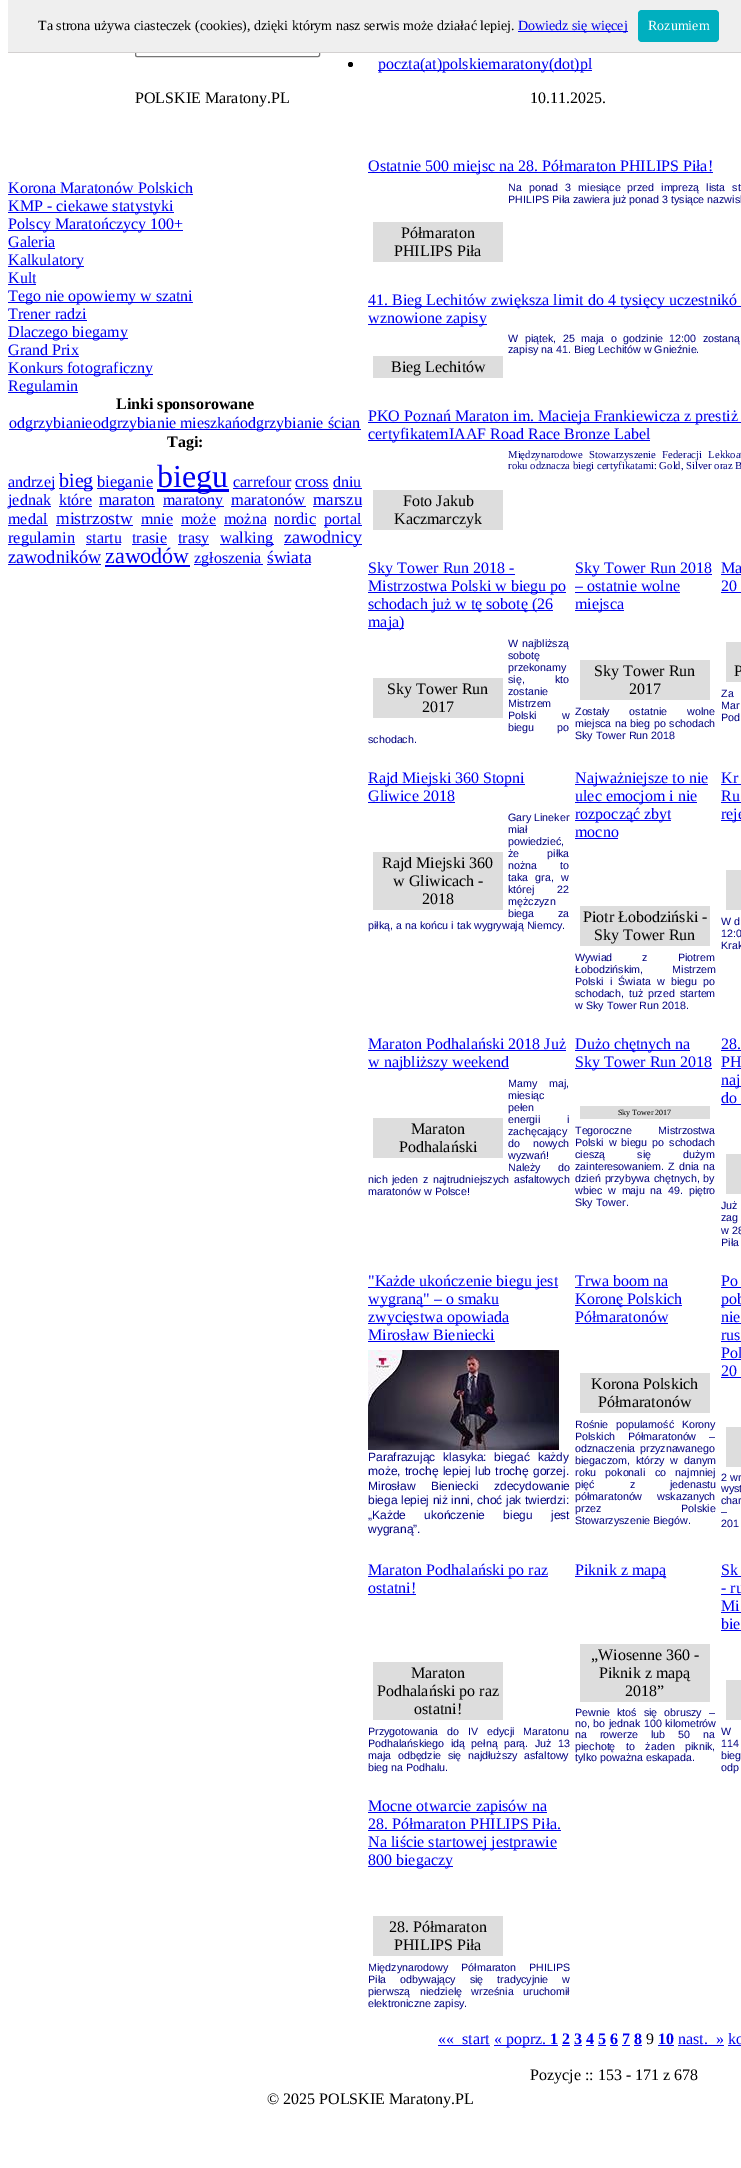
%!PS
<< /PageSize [741 2168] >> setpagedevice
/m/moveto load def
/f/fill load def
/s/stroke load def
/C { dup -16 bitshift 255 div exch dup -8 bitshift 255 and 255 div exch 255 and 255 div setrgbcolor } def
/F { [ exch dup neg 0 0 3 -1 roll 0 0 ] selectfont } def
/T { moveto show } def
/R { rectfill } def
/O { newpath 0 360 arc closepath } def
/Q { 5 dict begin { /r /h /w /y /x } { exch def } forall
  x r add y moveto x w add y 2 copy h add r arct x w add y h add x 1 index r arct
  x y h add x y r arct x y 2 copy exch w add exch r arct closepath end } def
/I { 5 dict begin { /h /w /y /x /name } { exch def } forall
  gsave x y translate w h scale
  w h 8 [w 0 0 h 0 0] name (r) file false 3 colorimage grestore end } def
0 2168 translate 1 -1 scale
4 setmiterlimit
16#FFFFFF C
0 0 741 2168 R
16#767676 C
135.5 36.5 184 20 1.5 Q s
16#EFEFEF C
8 0 733 52 R
16#D3D0D0 C
8 52 733 1 R
/LiberationSerif-Regular 14 F
16#000000 C
(Ta strona używa ciasteczek \(cookies\), dzięki którym nasz serwis może działać lepiej.) 38 30 T
16#0000EE C
518 31 110 1 R
(Dowiedz się więcej) 518 30 T
16#00AFBF C
638 10 81 32 4 Q f
16#FFFFFF C
(Rozumiem) 648 30 T
16#000000 C
350.5 64.5 2.5 O f
16#0000EE C
378 70 214 1 R
/LiberationSerif-Regular 16 F
(poczta\(at\)polskiemaratony\(dot\)pl) 378 69 T
16#000000 C
(POLSKIE Maratony.PL) 135 103 T
(10.11.2025.) 530 103 T
16#0000EE C
(Korona Maratonów Polskich) 8 193 T
8 194 185 1 R
8 212 166 1 R
(KMP - ciekawe statystyki) 8 211 T
8 230 175 1 R
(Polscy Maratończycy 100+) 8 229 T
(Galeria) 8 247 T
8 248 47 1 R
8 266 76 1 R
(Kalkulatory) 8 265 T
(Kult) 8 283 T
8 284 28 1 R
8 302 185 1 R
(Tego nie opowiemy w szatni) 8 301 T
(Trener radzi) 8 319 T
8 320 79 1 R
8 338 120 1 R
(Dlaczego biegamy) 8 337 T
(Grand Prix) 8 355 T
8 356 71 1 R
8 374 145 1 R
(Konkurs fotograficzny) 8 373 T
8 392 70 1 R
(Regulamin) 8 391 T
/LiberationSerif-Bold 16 F
16#000000 C
(Linki sponsorowane) 116 409 T
16#0000EE C
9 429 231 1 R
/LiberationSerif-Regular 16 F
(odgrzybianieodgrzybianie mieszkań) 9 428 T
240 429 121 1 R
(odgrzybianie ścian) 240 428 T
/LiberationSerif-Bold 16 F
16#000000 C
(Tagi:) 167 447 T
16#0000EE C
8 488 47 1 R
/LiberationSerif-Regular 16 F
(andrzej) 8 487 T
59 488 34 1 R
/LiberationSerif-Regular 20 F
(bieg) 59 487 T
97 488 56 1 R
/LiberationSerif-Regular 16.5 F
(bieganie) 97 487 T
157 489 72 3 R
/LiberationSerif-Regular 32 F
(biegu) 157 487 T
/LiberationSerif-Regular 16 F
(carrefour) 233 487 T
233 488 58 1 R
/LiberationSerif-Regular 16.5 F
(cross) 295 487 T
295 488 34 1 R
/LiberationSerif-Regular 16 F
(dniu) 333 487 T
333 488 29 1 R
8 506 43 1 R
(jednak) 8 505 T
(które) 59 505 T
59 506 33 1 R
/LiberationSerif-Regular 17 F
(maraton) 99 505 T
99 506 56 1 R
163 506 61 1 R
/LiberationSerif-Regular 16 F
(maratony) 163 505 T
/LiberationSerif-Regular 16.5 F
(maratonów) 231 505 T
231 506 75 1 R
/LiberationSerif-Regular 17 F
(marszu) 313 505 T
313 506 49 1 R
/LiberationSerif-Regular 16 F
(medal) 8 524 T
8 525 40 1 R
/LiberationSerif-Regular 17.5 F
(mistrzostw) 56 524 T
56 525 77 1 R
/LiberationSerif-Regular 16 F
(mnie) 141 524 T
141 525 32 1 R
(może) 181 524 T
181 525 35 1 R
(można) 224 524 T
224 525 42 1 R
/LiberationSerif-Regular 16.5 F
(nordic) 274 524 T
274 525 42 1 R
324 525 38 1 R
/LiberationSerif-Regular 16 F
(portal) 324 524 T
8 544 67 1 R
/LiberationSerif-Regular 16.5 F
(regulamin) 8 543 T
/LiberationSerif-Regular 16 F
(startu) 86 543 T
86 544 35 1 R
(trasie) 132 543 T
132 544 35 1 R
178 544 31 1 R
(trasy) 178 543 T
220 544 54 1 R
/LiberationSerif-Regular 16.5 F
(walking) 220 543 T
284 544 78 1 R
/LiberationSerif-Regular 18 F
(zawodnicy) 284 543 T
/LiberationSerif-Regular 18.25 F
(zawodników) 8 563 T
8 564 93 1 R
/LiberationSerif-Regular 22 F
(zawodów) 105 563 T
105 565 85 2 R
194 564 69 1 R
/LiberationSerif-Regular 16 F
(zgłoszenia) 194 563 T
/LiberationSerif-Regular 17.5 F
(świata) 267 563 T
267 564 44 1 R
368 172 345 1 R
/LiberationSerif-Regular 16 F
(Ostatnie 500 miejsc na 28. Półmaraton PHILIPS Piła!) 368 171 T
/LiberationSans-Regular 10.7 F
16#000080 C
508 191 m 4 0 32 (Na ponad 3 miesiące przed imprezą lista st) widthshow
(PHILIPS Piła zawiera już ponad 3 tysiące nazwisk) 508 203 T
16#DDDDDD C
373 222 130 40 R
/LiberationSerif-Regular 16 F
16#000000 C
(Półmaraton) 401 238 T
(PHILIPS Piła) 394 256 T
16#0000EE C
368 306 373 1 R
(41. Bieg Lechitów zwiększa limit do 4 tysięcy uczestnikó) 368 305 T
368 324 119 1 R
(wznowione zapisy) 368 323 T
/LiberationSans-Regular 10.7 F
16#000080 C
508 342 m 3.5 0 32 (W piątek, 25 maja o godzinie 12:00 zostaną) widthshow
(zapisy na 41. Bieg Lechitów w Gnieźnie.) 508 353 T
16#DDDDDD C
373 356 130 22 R
/LiberationSerif-Regular 16 F
16#000000 C
(Bieg Lechitów) 391 372 T
16#0000EE C
368 422 373 1 R
(PKO Poznań Maraton im. Macieja Frankiewicza z prestiż) 368 421 T
368 440 282 1 R
(certyfikatemIAAF Road Race Bronze Label) 368 439 T
/LiberationSerif-Regular 10.7 F
16#000080 C
508 458 m 3.5 0 32 (Międzynarodowe Stowarzyszenie Federacji Lekkoat) widthshow
(roku odznacza biegi certyfikatami: Gold, Silver oraz B) 508 469 T
16#DDDDDD C
373 490 130 40 R
/LiberationSerif-Regular 16 F
16#000000 C
(Foto Jakub) 403 506 T
(Kaczmarczyk) 394 524 T
16#0000EE C
368 574 147 1 R
(Sky Tower Run 2018 -) 368 573 T
368 592 198 1 R
(Mistrzostwa Polski w biegu po) 368 591 T
368 610 185 1 R
(schodach już w tę sobotę \(26) 368 609 T
368 628 36 1 R
(maja\)) 368 627 T
/LiberationSans-Regular 10.7 F
16#000080 C
508 647 m 1 0 32 (W najbliższą) widthshow
(sobotę) 508 659 T
(przekonamy) 508 671 T
508 683 m 27 0 32 (się, kto) widthshow
16#DDDDDD C
373 678 130 40 R
/LiberationSerif-Regular 16 F
16#000000 C
(Sky Tower Run) 387 694 T
(2017) 422 712 T
/LiberationSans-Regular 10.7 F
16#000080 C
(zostanie) 508 695 T
(Mistrzem) 508 707 T
508 719 m 22 0 32 (Polski w) widthshow
508 731 m 20 0 32 (biegu po) widthshow
(schodach.) 368 743 T
16#0000EE C
575 574 137 1 R
/LiberationSerif-Regular 16 F
(Sky Tower Run 2018) 575 573 T
(– ostatnie wolne) 575 591 T
575 592 105 1 R
575 610 49 1 R
(miejsca) 575 609 T
16#DDDDDD C
580 660 130 40 R
16#000000 C
(Sky Tower Run) 594 676 T
(2017) 629 694 T
/LiberationSans-Regular 10.7 F
16#000080 C
575 715 m 17 0 32 (Zostały ostatnie wolne) widthshow
575 727 m .5 0 32 (miejsca na bieg po schodach) widthshow
(Sky Tower Run 2018) 575 739 T
/LiberationSerif-Regular 16 F
16#0000EE C
(Ma) 721 573 T
721 574 20 1 R
(20) 721 591 T
721 592 20 1 R
16#DDDDDD C
726 642 15 40 R
16#000000 C
(P) 734 676 T
/LiberationSans-Regular 10.7 F
16#000080 C
721 697 m 10 0 32 (Za) widthshow
721 709 m 13 0 32 (Mar) widthshow
(Pod) 721 721 T
16#0000EE C
368 784 157 1 R
/LiberationSerif-Regular 16 F
(Rajd Miejski 360 Stopni) 368 783 T
(Gliwice 2018) 368 801 T
368 802 87 1 R
/LiberationSans-Regular 10.7 F
16#000080 C
(Gary Lineker) 508 821 T
(miał) 508 833 T
(powiedzieć,) 508 845 T
508 857 m 25 0 32 (że piłka) widthshow
16#DDDDDD C
373 852 130 58 R
/LiberationSerif-Regular 16 F
16#000000 C
(Rajd Miejski 360) 382 868 T
(w Gliwicach -) 393 886 T
(2018) 422 904 T
/LiberationSans-Regular 10.7 F
16#000080 C
508 869 m 20 0 32 (nożna to) widthshow
508 881 m 4 0 32 (taka gra, w) widthshow
508 893 m 20 0 32 (której 22) widthshow
(mężczyzn) 508 905 T
508 917 m 21 0 32 (biega za) widthshow
(piłką, a na końcu i tak wygrywają Niemcy.) 368 929 T
16#0000EE C
575 784 133 1 R
/LiberationSerif-Regular 16 F
(Najważniejsze to nie) 575 783 T
575 802 122 1 R
(ulec emocjom i nie) 575 801 T
575 820 96 1 R
(rozpocząć zbyt) 575 819 T
(mocno) 575 837 T
575 838 43 1 R
16#DDDDDD C
580 906 130 40 R
16#000000 C
(Piotr Łobodziński -) 583 922 T
(Sky Tower Run) 594 940 T
/LiberationSans-Regular 10.7 F
16#000080 C
575 961 m 27 0 32 (Wywiad z Piotrem) widthshow
575 973 m 26 0 32 (Łobodzińskim, Mistrzem) widthshow
575 985 m 3.25 0 32 (Polski i Świata w biegu po) widthshow
575 997 m 2 0 32 (schodach, tuż przed startem) widthshow
(w Sky Tower Run 2018.) 575 1009 T
/LiberationSerif-Regular 16 F
16#0000EE C
(Kr) 721 783 T
721 784 20 1 R
(Ru) 721 801 T
721 802 20 1 R
721 820 20 1 R
(reje) 721 819 T
16#DDDDDD C
726 870 15 40 R
/LiberationSans-Regular 10.7 F
16#000080 C
(W d) 721 925 T
(12:0) 721 937 T
(Krak) 721 949 T
/LiberationSerif-Regular 16 F
16#0000EE C
(Maraton Podhalański 2018 Już) 368 1049 T
368 1050 198 1 R
368 1068 141 1 R
(w najbliższy weekend) 368 1067 T
/LiberationSans-Regular 10.7 F
16#000080 C
508 1087 m 9 0 32 (Mamy maj,) widthshow
(miesiąc) 508 1099 T
(pełen) 508 1111 T
508 1123 m 24 0 32 (energii i) widthshow
16#DDDDDD C
373 1118 130 40 R
/LiberationSerif-Regular 16 F
16#000000 C
(Maraton) 411 1134 T
(Podhalański) 399 1152 T
/LiberationSans-Regular 10.7 F
16#000080 C
(zachęcający) 508 1135 T
508 1147 m 10 0 32 (do nowych) widthshow
(wyzwań!) 508 1159 T
508 1171 m 14 0 32 (Należy do) widthshow
368 1183 m 1.5 0 32 (nich jeden z najtrudniejszych asfaltowych) widthshow
(maratonów w Polsce!) 368 1195 T
16#0000EE C
575 1050 115 1 R
/LiberationSerif-Regular 16 F
(Dużo chętnych na) 575 1049 T
575 1068 137 1 R
(Sky Tower Run 2018) 575 1067 T
16#DDDDDD C
580 1106 130 13 R
/LiberationSerif-Regular 8 F
16#000000 C
(Sky Tower 2017) 618 1115 T
/LiberationSans-Regular 10.7 F
16#000080 C
575 1134 m 24 0 32 (Tegoroczne Mistrzostwa) widthshow
575 1146 m 2 0 32 (Polski w biegu po schodach) widthshow
575 1158 m 29 0 32 (cieszą się dużym) widthshow
575 1170 m 1 0 32 (zainteresowaniem. Z dnia na) widthshow
575 1182 m 1 0 32 (dzień przybywa chętnych, by) widthshow
575 1194 m 2.75 0 32 (wbiec w maju na 49. piętro) widthshow
(Sky Tower.) 575 1206 T
/LiberationSerif-Regular 16 F
16#0000EE C
(28.) 721 1049 T
721 1050 20 1 R
(PH) 721 1067 T
721 1068 20 1 R
721 1086 20 1 R
(naj) 721 1085 T
(do) 721 1103 T
721 1104 20 1 R
16#DDDDDD C
726 1154 15 40 R
/LiberationSans-Regular 10.7 F
16#000080 C
(Już) 721 1209 T
(zag) 721 1221 T
(w 28) 721 1234 T
(Piła) 721 1246 T
16#0000EE C
368 1287 190 1 R
/LiberationSerif-Regular 16 F
("Każde ukończenie biegu jest) 368 1286 T
368 1305 131 1 R
(wygraną" – o smaku) 368 1304 T
368 1323 141 1 R
(zwycięstwa opowiada) 368 1322 T
(Mirosław Bieniecki) 368 1340 T
368 1341 127 1 R
(1.rgb) 368 1350 192 100 I
/LiberationSans-Regular 12 F
16#000080 C
368 1461 m 4.5 0 32 (Parafrazując klasyka: biegać każdy) widthshow
368 1475 m 1 0 32 (może, trochę lepiej lub trochę gorzej.) widthshow
368 1490 m 12 0 32 (Mirosław Bieniecki zdecydowanie) widthshow
368 1504 m .25 0 32 (biega lepiej niż inni, choć jak twierdzi:) widthshow
368 1519 m 15 0 32 („Każde ukończenie biegu jest) widthshow
(wygraną”.) 368 1533 T
/LiberationSerif-Regular 16 F
16#0000EE C
(Trwa boom na) 575 1286 T
575 1287 93 1 R
575 1305 107 1 R
(Koronę Polskich) 575 1304 T
(Półmaratonów) 575 1322 T
575 1323 93 1 R
16#DDDDDD C
580 1373 130 40 R
16#000000 C
(Korona Polskich) 591 1389 T
(Półmaratonów) 598 1407 T
/LiberationSans-Regular 10.7 F
16#000080 C
575 1428 m 4.5 0 32 (Rośnie popularność Korony) widthshow
575 1440 m 10 0 32 (Polskich Półmaratonów –) widthshow
575 1452 m 2 0 32 (odznaczenia przyznawanego) widthshow
575 1464 m 3 0 32 (biegaczom, którzy w danym) widthshow
575 1476 m 6.5 0 32 (roku pokonali co najmniej) widthshow
575 1488 m 32 0 32 (pięć z jedenastu) widthshow
575 1500 m 12 0 32 (półmaratonów wskazanych) widthshow
575 1512 m 77 0 32 (przez Polskie) widthshow
(Stowarzyszenie Biegów.) 575 1524 T
/LiberationSerif-Regular 16 F
16#0000EE C
(Po) 721 1286 T
721 1287 20 1 R
721 1305 20 1 R
(pob) 721 1304 T
(nie) 721 1322 T
721 1323 20 1 R
(rus) 721 1340 T
721 1341 20 1 R
(Pol) 721 1358 T
721 1359 20 1 R
(20) 721 1376 T
721 1377 20 1 R
16#DDDDDD C
726 1427 15 40 R
/LiberationSans-Regular 10.7 F
16#000080 C
721 1481 m .5 0 32 (2 wr) widthshow
721 1492 m 37 0 32 (wyst) widthshow
(char) 721 1504 T
721 1515 m 10 0 32 (–) widthshow
(201) 721 1527 T
16#0000EE C
368 1576 180 1 R
/LiberationSerif-Regular 16 F
(Maraton Podhalański po raz) 368 1575 T
(ostatni!) 368 1593 T
368 1594 48 1 R
16#DDDDDD C
373 1662 130 58 R
16#000000 C
(Maraton) 411 1678 T
(Podhalański po raz) 377 1696 T
(ostatni!) 414 1714 T
/LiberationSans-Regular 10.7 F
16#000080 C
368 1735 m 6 0 32 (Przygotowania do IV edycji Maratonu) widthshow
368 1747 m 3.5 0 32 (Podhalańskiego idą pełną parą. Już 13) widthshow
368 1759 m 3.5 0 32 (maja odbędzie się najdłuższy asfaltowy) widthshow
(bieg na Podhalu.) 368 1771 T
16#0000EE C
575 1576 91 1 R
/LiberationSerif-Regular 16 F
(Piknik z mapą) 575 1575 T
16#DDDDDD C
580 1644 130 58 R
16#000000 C
(„Wiosenne 360 -) 591 1660 T
(Piknik z mapą) 599 1678 T
(2018”) 625 1696 T
/LiberationSans-Regular 10.7 F
16#000080 C
575 1716 m 4 0 32 (Pewnie ktoś się obruszy –) widthshow
575 1727 m .5 0 32 (no, bo jednak 100 kilometrów) widthshow
575 1738 m 10 0 32 (na rowerze lub 50 na) widthshow
575 1750 m 7.5 0 32 (piechotę to żaden piknik,) widthshow
(tylko poważna eskapada.) 575 1761 T
/LiberationSerif-Regular 16 F
16#0000EE C
(Sk) 721 1575 T
721 1576 20 1 R
(- ru) 721 1593 T
721 1594 20 1 R
(Mi) 721 1611 T
721 1612 20 1 R
(bie) 721 1629 T
721 1630 20 1 R
16#DDDDDD C
726 1680 15 40 R
/LiberationSans-Regular 10.7 F
16#000080 C
721 1735 m 7 0 32 (W) widthshow
721 1747 m 2 0 32 (114) widthshow
721 1759 m 15 0 32 (bieg) widthshow
(odp) 721 1771 T
16#0000EE C
368 1812 179 1 R
/LiberationSerif-Regular 16 F
(Mocne otwarcie zapisów na) 368 1811 T
(28. Półmaraton PHILIPS Piła.) 368 1829 T
368 1830 193 1 R
368 1848 189 1 R
(Na liście startowej jestprawie) 368 1847 T
368 1866 85 1 R
(800 biegaczy) 368 1865 T
16#DDDDDD C
373 1916 130 40 R
16#000000 C
(28. Półmaraton) 389 1932 T
(PHILIPS Piła) 394 1950 T
/LiberationSans-Regular 10.7 F
16#000080 C
368 1971 m 10 0 32 (Międzynarodowy Półmaraton PHILIPS) widthshow
368 1983 m 11 0 32 (Piła odbywający się tradycyjnie w) widthshow
368 1995 m 6.5 0 32 (pierwszą niedzielę września uruchomił) widthshow
(elektroniczne zapisy.) 368 2007 T
/LiberationSerif-Regular 16 F
16#0000EE C
(««  start) 438 2044 T
438 2045 52 1 R
494 2045 64 1 R
(« poprz.) 494 2044 T
/LiberationSerif-Bold 16 F
(1 2 3 4 5 6 7 8) 550 2044 T
/LiberationSerif-Regular 16 F
16#000000 C
(9) 646 2044 T
/LiberationSerif-Bold 16 F
16#0000EE C
(10) 658 2044 T
658 2045 16 1 R
/LiberationSerif-Regular 16 F
(nast.  » ko) 678 2044 T
678 2045 46 1 R
562 2045 8 1 R
574 2045 8 1 R
586 2045 8 1 R
598 2045 8 1 R
610 2045 8 1 R
622 2045 8 1 R
634 2045 8 1 R
728 2045 13 1 R
16#000000 C
(Pozycje :: 153 - 171 z 678) 530 2080 T
(© 2025 POLSKIE Maratony.PL) 267 2104 T
showpage
